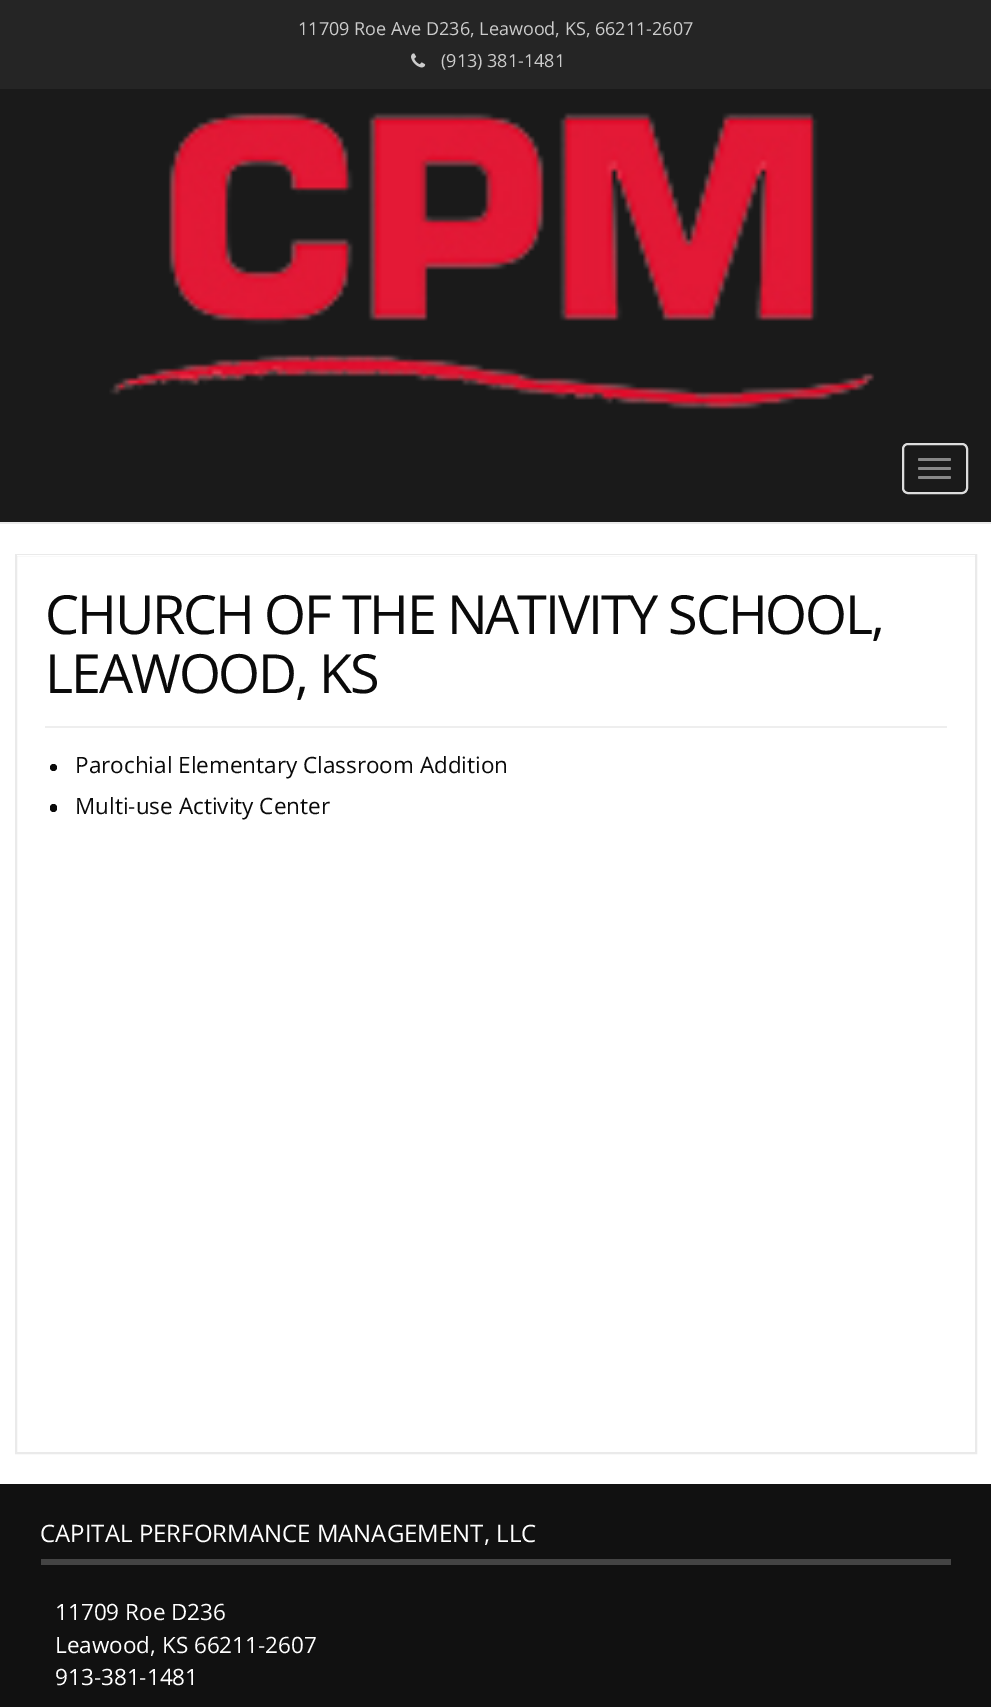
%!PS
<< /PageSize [991 1707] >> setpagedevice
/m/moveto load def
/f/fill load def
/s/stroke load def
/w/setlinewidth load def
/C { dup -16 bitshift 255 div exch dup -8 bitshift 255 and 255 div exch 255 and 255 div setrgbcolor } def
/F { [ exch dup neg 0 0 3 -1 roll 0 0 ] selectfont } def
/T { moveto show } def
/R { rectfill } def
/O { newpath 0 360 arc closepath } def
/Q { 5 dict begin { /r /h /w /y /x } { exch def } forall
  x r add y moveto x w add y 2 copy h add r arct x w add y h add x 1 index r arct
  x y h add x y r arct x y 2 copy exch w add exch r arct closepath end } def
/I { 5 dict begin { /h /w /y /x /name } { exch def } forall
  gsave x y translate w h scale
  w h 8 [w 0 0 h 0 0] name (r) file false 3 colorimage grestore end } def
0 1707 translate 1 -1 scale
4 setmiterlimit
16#FFFFFF C
0 0 991 1707 R
16#252525 C
0 0 991 89 R
/OpenSans-Regular 18 F
16#CCCCCC C
(11709 Roe Ave D236, Leawood, KS, 66211-2607) 298 35 T
(1.rgb) 411 53 15 15 I
(\(913\) 381-1481) 441 67 T
16#1A1A1A C
0 89 991 433 R
16#EAEAEA C
0 522 991 2 R
(2.rgb) 109 112 766 298 I
16#DDDDDD C
2 w
903 444 64 49 5 Q s
16#888888 C
918 458 33 3 1.5 Q f
918 467 33 3 1.5 Q f
918 476 33 3 1.5 Q f
16#EAEAEA C
16 555 960 898 rectstroke
16#FFFFFF C
17 555 958 1 R
/OpenSans-Regular 54 F
16#0A0A0A C
45 634 m -2.15 0 (CHURCH OF THE NATIVITY SCHOOL,) ashow
45 693 m -2.15 0 (LEAWOOD, KS) ashow
16#EEEEEE C
45 726 902 2 R
16#0A0A0A C
53.5 767.5 3.5 O f
/OpenSans-Regular 22.5 F
(Parochial Elementary Classroom Addition) 75 773 T
50 804 7 8 3.5 Q f
(Multi-use Activity Center) 75 814 T
16#111111 C
0 1484 991 223 R
16#444444 C
41 1559 910 6 R
/OpenSans-Regular 24 F
16#FFFFFF C
(CAPITAL PERFORMANCE MANAGEMENT, LLC) 40 1542 T
/OpenSans-Regular 22.5 F
(11709 Roe D236) 55 1620 T
(Leawood, KS 66211-2607) 55 1653 T
(913-381-1481) 55 1685 T
showpage
